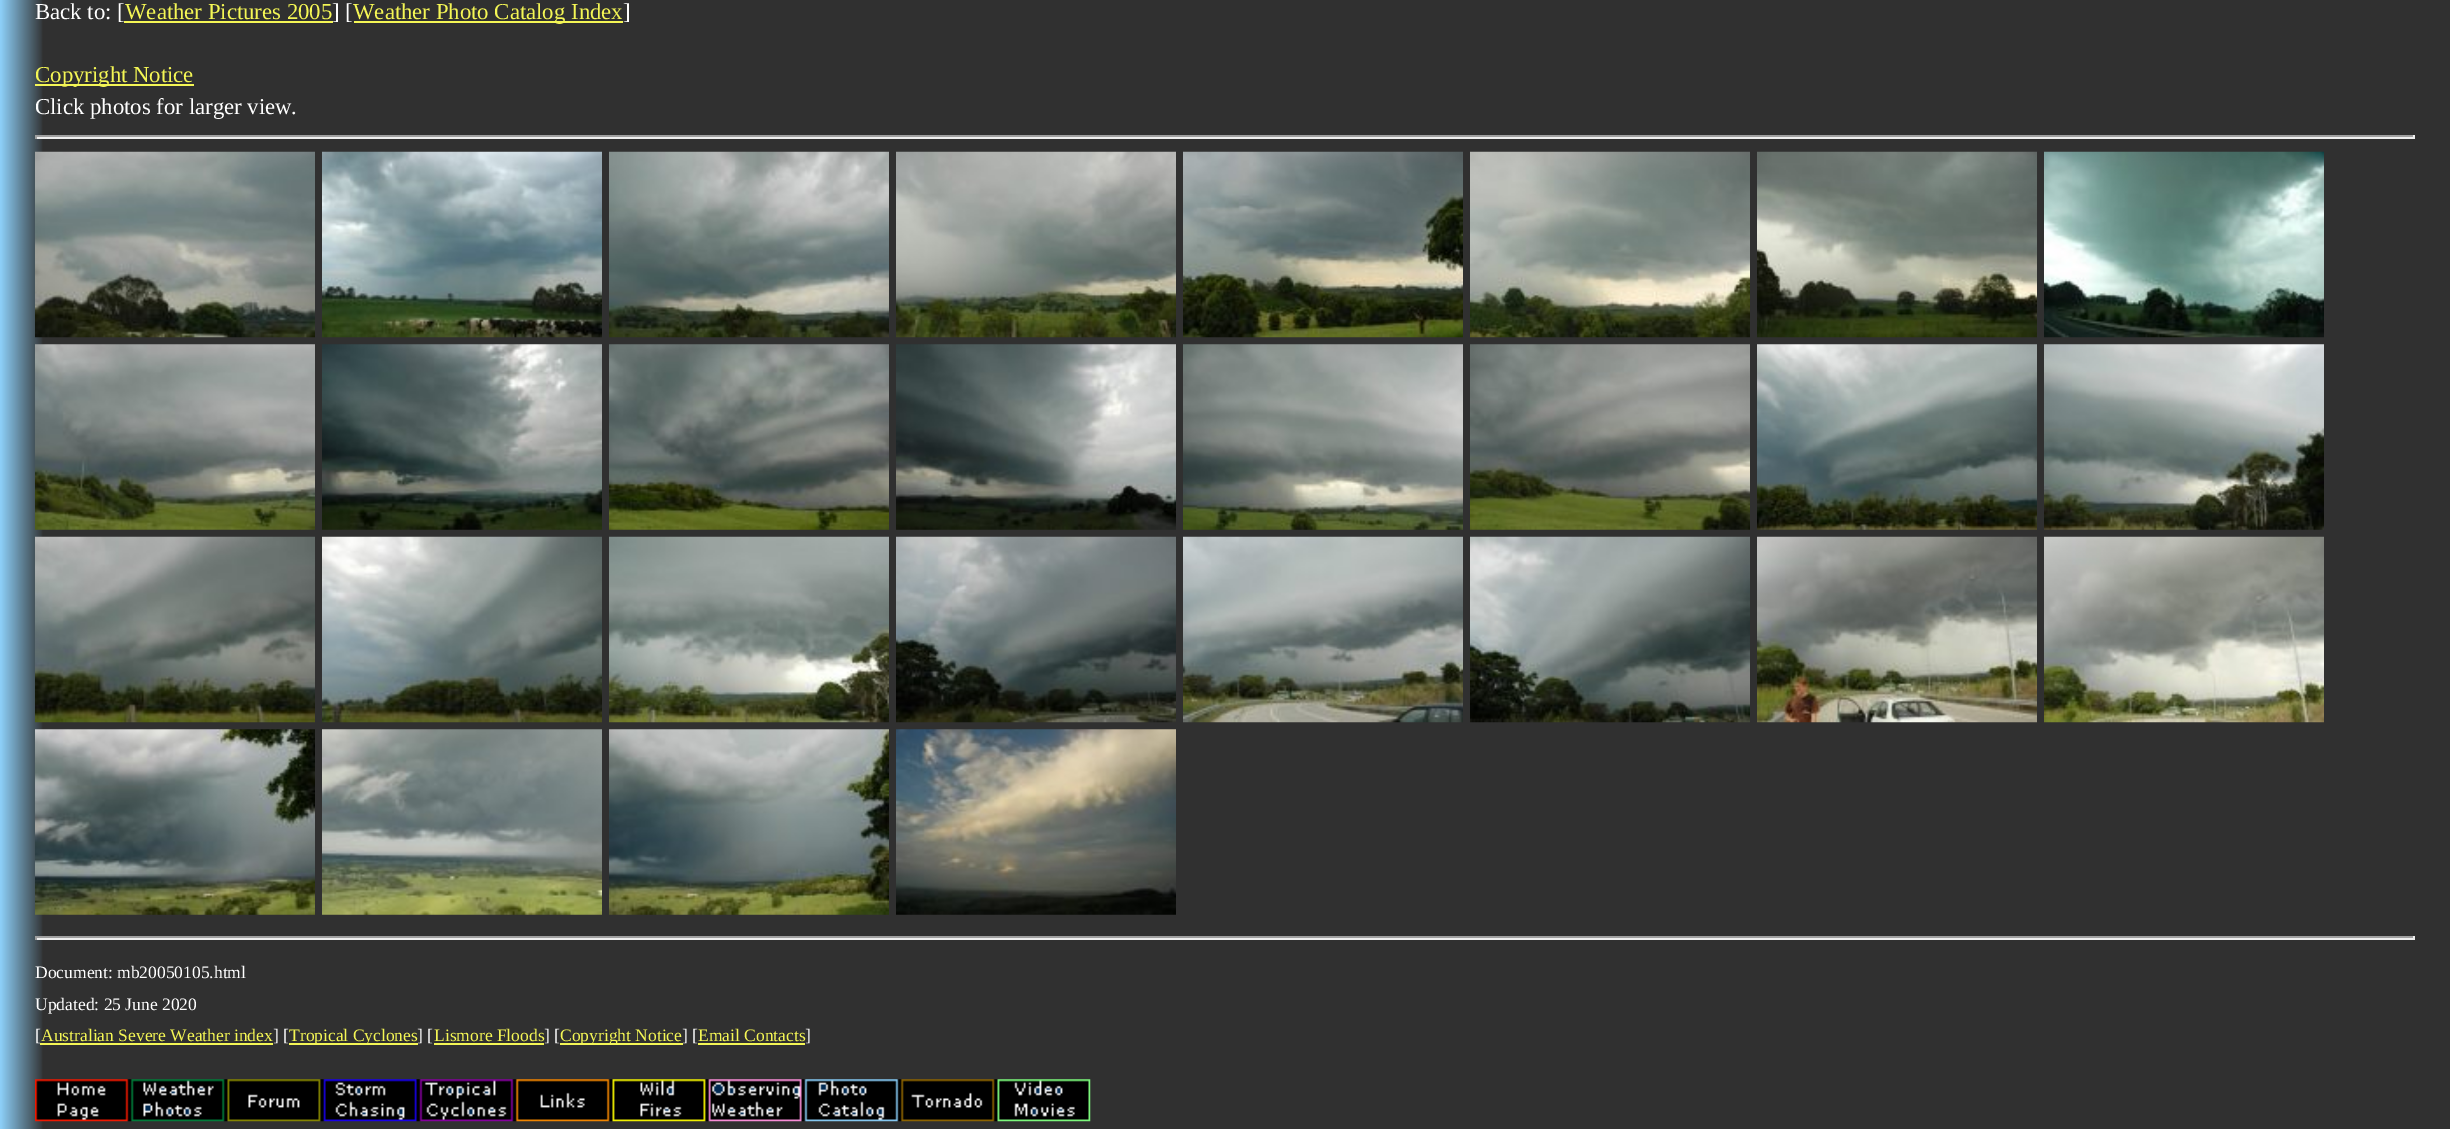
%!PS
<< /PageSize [2450 1129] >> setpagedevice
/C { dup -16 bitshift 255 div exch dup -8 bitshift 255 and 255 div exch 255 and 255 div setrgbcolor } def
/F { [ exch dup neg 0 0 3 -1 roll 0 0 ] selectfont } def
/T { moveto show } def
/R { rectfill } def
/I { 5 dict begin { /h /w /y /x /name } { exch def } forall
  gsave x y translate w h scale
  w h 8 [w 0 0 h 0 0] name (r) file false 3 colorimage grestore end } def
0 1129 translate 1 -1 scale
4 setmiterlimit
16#FFFFFF C
0 0 2450 1129 R
(1.rgb) 0 0 2450 1129 I
/LiberationSerif-Regular 22.75 F
(Back to: [) 35 19 T
16#F4F655 C
124 21 209 2 R
(Weather Pictures 2005) 125 19 T
16#FFFFFF C
(] [) 332 19 T
16#F4F655 C
354 21 269 2 R
(Weather Photo Catalog Index) 353 19 T
16#FFFFFF C
(]) 623 19 T
16#F4F655 C
35 84 159 2 R
(Copyright Notice) 35 82 T
16#FFFFFF C
(Click photos for larger view.) 35 114 T
16#9F9F9F C
35 135 2380 2 R
16#EEEEEE C
2413 135 2 4 R
35 137 2380 2 R
16#9F9F9F C
35 135 2 4 R
(2.rgb) 35 151 280 187 I
(3.rgb) 322 151 280 187 I
(4.rgb) 609 151 280 187 I
(5.rgb) 896 151 280 187 I
(6.rgb) 1183 151 280 187 I
(7.rgb) 1470 151 280 187 I
(8.rgb) 1757 151 280 187 I
(9.rgb) 2044 151 280 187 I
(10.rgb) 35 344 280 186 I
(11.rgb) 322 344 280 186 I
(12.rgb) 609 344 280 186 I
(13.rgb) 896 344 280 186 I
(14.rgb) 1183 344 280 186 I
(15.rgb) 1470 344 280 186 I
(16.rgb) 1757 344 280 186 I
(17.rgb) 2044 344 280 186 I
(18.rgb) 35 536 280 187 I
(19.rgb) 322 536 280 187 I
(20.rgb) 609 536 280 187 I
(21.rgb) 896 536 280 187 I
(22.rgb) 1183 536 280 187 I
(23.rgb) 1470 536 280 187 I
(24.rgb) 1757 536 280 187 I
(25.rgb) 2044 536 280 187 I
(26.rgb) 35 729 280 186 I
(27.rgb) 322 729 280 186 I
(28.rgb) 609 729 280 186 I
(29.rgb) 896 729 280 186 I
35 936 2380 2 R
16#EEEEEE C
2413 936 2 4 R
35 938 2380 2 R
16#9F9F9F C
35 936 2 4 R
/LiberationSerif-Regular 17.5 F
16#FFFFFF C
(Document: mb20050105.html) 35 978 T
(Updated: 25 June 2020) 35 1010 T
([) 35 1041 T
16#F4F655 C
40 1043 233 2 R
(Australian Severe Weather index) 41 1041 T
16#FFFFFF C
(] [) 273 1041 T
16#F4F655 C
289 1043 129 2 R
(Tropical Cyclones) 289 1041 T
16#FFFFFF C
(] [) 417 1041 T
16#F4F655 C
(Lismore Floods) 434 1041 T
16#FFFFFF C
(] [) 544 1041 T
16#F4F655 C
434 1043 110 2 R
560 1043 123 2 R
(Copyright Notice) 560 1041 T
16#FFFFFF C
(] [) 682 1041 T
16#F4F655 C
698 1043 107 2 R
(Email Contacts) 698 1041 T
16#FFFFFF C
(]) 805 1041 T
(30.rgb) 35 1079 1056 43 I
showpage
